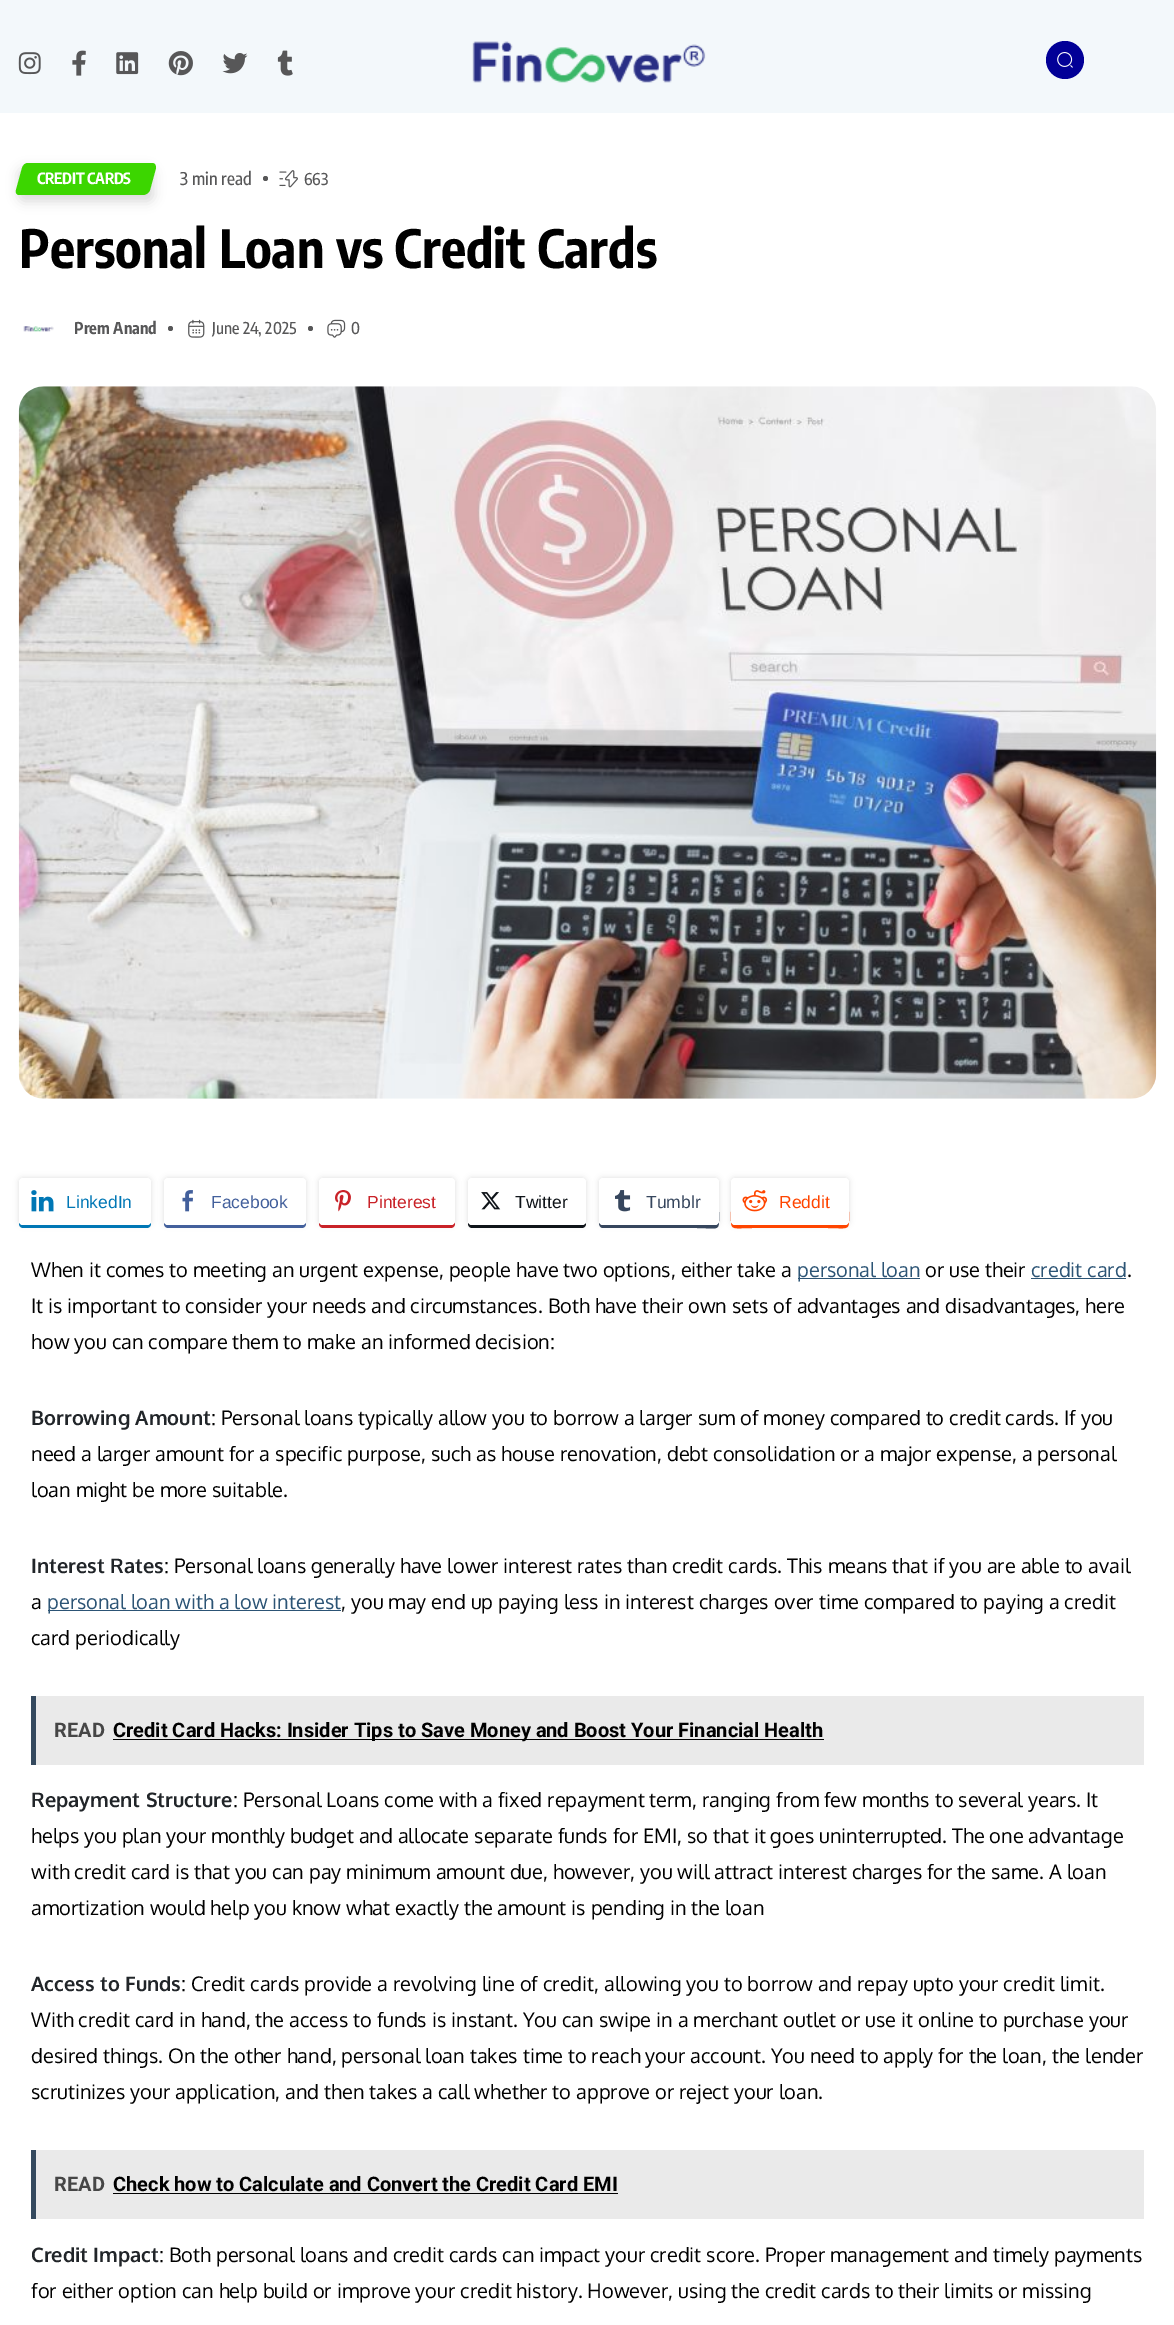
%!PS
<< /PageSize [1174 2325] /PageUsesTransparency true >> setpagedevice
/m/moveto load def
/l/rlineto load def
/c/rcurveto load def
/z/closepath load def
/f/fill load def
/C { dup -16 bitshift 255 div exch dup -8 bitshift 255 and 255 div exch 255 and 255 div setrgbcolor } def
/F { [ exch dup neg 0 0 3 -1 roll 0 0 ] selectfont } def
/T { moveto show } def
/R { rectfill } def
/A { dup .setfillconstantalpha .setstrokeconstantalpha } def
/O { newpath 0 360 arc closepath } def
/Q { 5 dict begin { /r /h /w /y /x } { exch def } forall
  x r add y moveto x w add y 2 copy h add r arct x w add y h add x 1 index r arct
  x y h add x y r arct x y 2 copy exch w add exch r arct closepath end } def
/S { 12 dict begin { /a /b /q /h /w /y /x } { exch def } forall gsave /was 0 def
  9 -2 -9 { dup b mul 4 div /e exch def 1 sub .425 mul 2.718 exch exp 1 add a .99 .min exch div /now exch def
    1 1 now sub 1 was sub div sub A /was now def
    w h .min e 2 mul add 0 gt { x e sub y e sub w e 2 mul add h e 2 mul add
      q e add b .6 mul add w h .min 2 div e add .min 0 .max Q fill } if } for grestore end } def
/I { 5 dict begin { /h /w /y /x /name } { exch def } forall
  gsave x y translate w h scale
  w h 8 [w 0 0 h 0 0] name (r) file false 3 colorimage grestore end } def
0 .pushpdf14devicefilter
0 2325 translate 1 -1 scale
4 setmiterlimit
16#FFFFFF C
0 0 1174 2325 R
16#F3F8FB C
0 0 1174 113 R
(1.rgb) 18 52 23 23 I
(2.rgb) 72 50 14 26 I
(3.rgb) 116 52 23 23 I
(4.rgb) 168 51 25 25 I
(5.rgb) 222 53 26 21 I
(6.rgb) 277 50 16 26 I
(7.rgb) 472 41 234 42 I
16#020097 C
1065 60 19 O f
(8.rgb) 1057 52 16 16 I
16#020202 C
19 169 134 32 5 6 .15 S
16#3CD600 C
28 163 m 124 0 l 3 0 4 2 4 5 c -6 22 l -1 3 -4 5 -7 5 c -124 0 l -2 0 -4 -2 -3 -5 c 6 -22 l 1 -3 3 -5 6 -5 c z f
/EncodeSansCondensed-Bold 15.5 F
16#FFFFFF C
37 184 m -.25 0 (CREDIT CARDS) ashow
/EncodeSansCondensed-Medium 17.5 F
16#575758 C
(3 min read) 180 185 T
265.5 178.5 2.5 O f
(9.rgb) 279 170 19 18 I
/EncodeSansCondensed-Medium 16.25 F
(663) 304 185 T
/EncodeSansCondensed-Bold 52.5 F
16#000000 C
(Personal Loan vs Credit Cards) 19 268 T
(10.rgb) 23 326 31 6 I
/EncodeSansCondensed-Bold 16.25 F
16#575758 C
(Prem Anand) 74 334 T
170.5 328.5 2.5 O f
(11.rgb) 188 319 17 19 I
/EncodeSansCondensed-Medium 16.25 F
(June 24, 2025) 212 334 T
310.5 328.5 2.5 O f
(12.rgb) 327 319 19 19 I
(0) 351 334 T
(13.rgb) 18 386 1139 713 I
16#000000 C
19 1178 132 47 4 3 .13 S
16#0077B5 C
19 1223 m 0 1 l 0 2 2 4 4 4 c 124 0 l 2 0 4 -2 4 -4 c 0 -1 l -1 1 -2 2 -3 2 c -126 0 l -1 0 -2 -1 -3 -2 c z f
16#FFFFFF C
19 1178 132 47 4 Q f
(14.rgb) 31 1190 23 22 I
/LiberationSans-Regular 17.5 F
16#0077B5 C
(LinkedIn) 66 1208 T
16#000000 C
164 1178 142 47 4 3 .13 S
16#43609C C
164 1223 m 0 1 l 0 2 2 4 4 4 c 134 0 l 2 0 4 -2 4 -4 c 0 -1 l -1 1 -2 2 -4 2 c -134 0 l -2 0 -3 -1 -4 -2 c z f
16#FFFFFF C
164 1178 142 47 4 Q f
(15.rgb) 182 1190 11 22 I
16#43609C C
(Facebook) 211 1208 T
16#000000 C
319 1178 136 47 4 3 .13 S
16#C92228 C
319 1223 m 0 1 l 0 2 2 4 4 4 c 128 0 l 2 0 4 -2 4 -4 c 0 -3 l 0 2 -2 4 -4 4 c -129 0 l -1 0 -2 -1 -3 -2 c z f
16#FFFFFF C
319 1178 136 47 4 Q f
(16.rgb) 335 1190 16 22 I
16#C92228 C
(Pinterest) 367 1208 T
16#000000 C
468 1178 118 47 4 3 .13 S
16#0F1419 C
468 1223 m 0 1 l 0 2 2 4 4 4 c 110 0 l 2 0 4 -2 4 -4 c 0 -1 l -1 1 l -2 1 l -112 0 l -1 0 -2 -1 -3 -2 c z f
16#FFFFFF C
468 1178 118 47 4 Q f
(17.rgb) 481 1192 20 18 I
16#0F1419 C
(Twitter) 515 1208 T
16#000000 C
599 1178 120 47 4 3 .13 S
16#36465D C
599 1223 m 0 2 1 5 4 5 c 93 0 l 25 0 23 5 23 -17 c 0 -28 l 0 38 l 0 2 -2 4 -4 4 c -113 0 l -1 0 -2 -1 -3 -2 c z f
16#FFFFFF C
599 1178 120 47 4 Q f
(18.rgb) 615 1190 16 22 I
16#36465D C
(Tumblr) 646 1208 T
16#000000 C
731 1178 118 47 4 3 .13 S
16#FF4500 C
731 1183 m 0 28 l 0 21 -2 17 22 17 c 74 0 l 24 0 22 4 22 -17 c 0 -28 l 0 38 l 0 2 -2 4 -4 4 c -110 0 l -2 0 -4 -2 -4 -4 c z f
16#FFFFFF C
731 1178 118 47 4 Q f
(19.rgb) 742 1190 26 22 I
16#FF4500 C
(Reddit) 779 1208 T
/Oxygen-Regular 20 F
16#000000 C
(When it comes to meeting an urgent expense, people have two options, either take a) 31 1277 T
16#2C5475 C
798 1278 122 1 R
(personal loan) 797 1277 T
16#000000 C
(or use their) 925 1277 T
16#2C5475 C
(credit card) 1031 1277 T
1031 1278 95 1 R
16#000000 C
(.) 1127 1277 T
(It is important to consider your needs and circumstances. Both have their own sets of advantages and disadvantages, here) 31 1313 T
(how you can compare them to make an informed decision:) 31 1349 T
/Oxygen-Bold 20 F
16#212529 C
(Borrowing Amount) 31 1425 T
/Oxygen-Regular 20 F
16#000000 C
(: Personal loans typically allow you to borrow a larger sum of money compared to credit cards. If you) 211 1425 T
(need a larger amount for a specific purpose, such as house renovation, debt consolidation or a major expense, a personal) 31 1461 T
(loan might be more suitable.) 31 1497 T
/Oxygen-Bold 20 F
16#212529 C
(Interest Rates) 31 1573 T
/Oxygen-Regular 20 F
16#000000 C
(: Personal loans generally have lower interest rates than credit cards. This means that if you are able to avail) 164 1573 T
(a) 31 1609 T
16#2C5475 C
48 1610 293 1 R
(personal loan with a low interest) 47 1609 T
16#000000 C
(, you may end up paying less in interest charges over time compared to paying a credit) 341 1609 T
(card periodically) 31 1645 T
16#EAEAEA C
36 1696 1108 69 R
16#34495E C
31 1696 5 69 R
/Roboto-Bold 20 F
16#464646 C
(READ) 54 1737 T
16#000000 C
113 1739 711 1 R
(Credit Card Hacks: Insider Tips to Save Money and Boost Your Financial Health) 113 1737 T
/Oxygen-Bold 20 F
16#212529 C
(Repayment Structure) 31 1807 T
/Oxygen-Regular 20 F
16#000000 C
(: Personal Loans come with a fixed repayment term, ranging from few months to several years. It) 233 1807 T
(helps you plan your monthly budget and allocate separate funds for EMI, so that it goes uninterrupted. The one advantage) 31 1843 T
(with credit card is that you can pay minimum amount due, however, you will attract interest charges for the same. A loan) 31 1879 T
(amortization would help you know what exactly the amount is pending in the loan) 31 1915 T
/Oxygen-Bold 20 F
16#212529 C
(Access to Funds) 31 1991 T
/Oxygen-Regular 20 F
16#000000 C
(: Credit cards provide a revolving line of credit, allowing you to borrow and repay upto your credit limit.) 181 1991 T
(With credit card in hand, the access to funds is instant. You can swipe in a merchant outlet or use it online to purchase your) 31 2027 T
(desired things. On the other hand, personal loan takes time to reach your account. You need to apply for the loan, the lender) 31 2063 T
(scrutinizes your application, and then takes a call whether to approve or reject your loan.) 31 2099 T
16#EAEAEA C
36 2150 1108 69 R
16#34495E C
31 2150 5 69 R
/Roboto-Bold 20 F
16#464646 C
(READ) 54 2191 T
16#000000 C
(Check how to Calculate and Convert the Credit Card EMI) 113 2191 T
113 2193 505 1 R
/Oxygen-Bold 20 F
16#212529 C
(Credit Impact) 31 2262 T
/Oxygen-Regular 20 F
16#000000 C
(: Both personal loans and credit cards can impact your credit score. Proper management and timely payments) 159 2262 T
(for either option can help build or improve your credit history. However, using the credit cards to their limits or missing) 31 2298 T
.poppdf14devicefilter showpage
